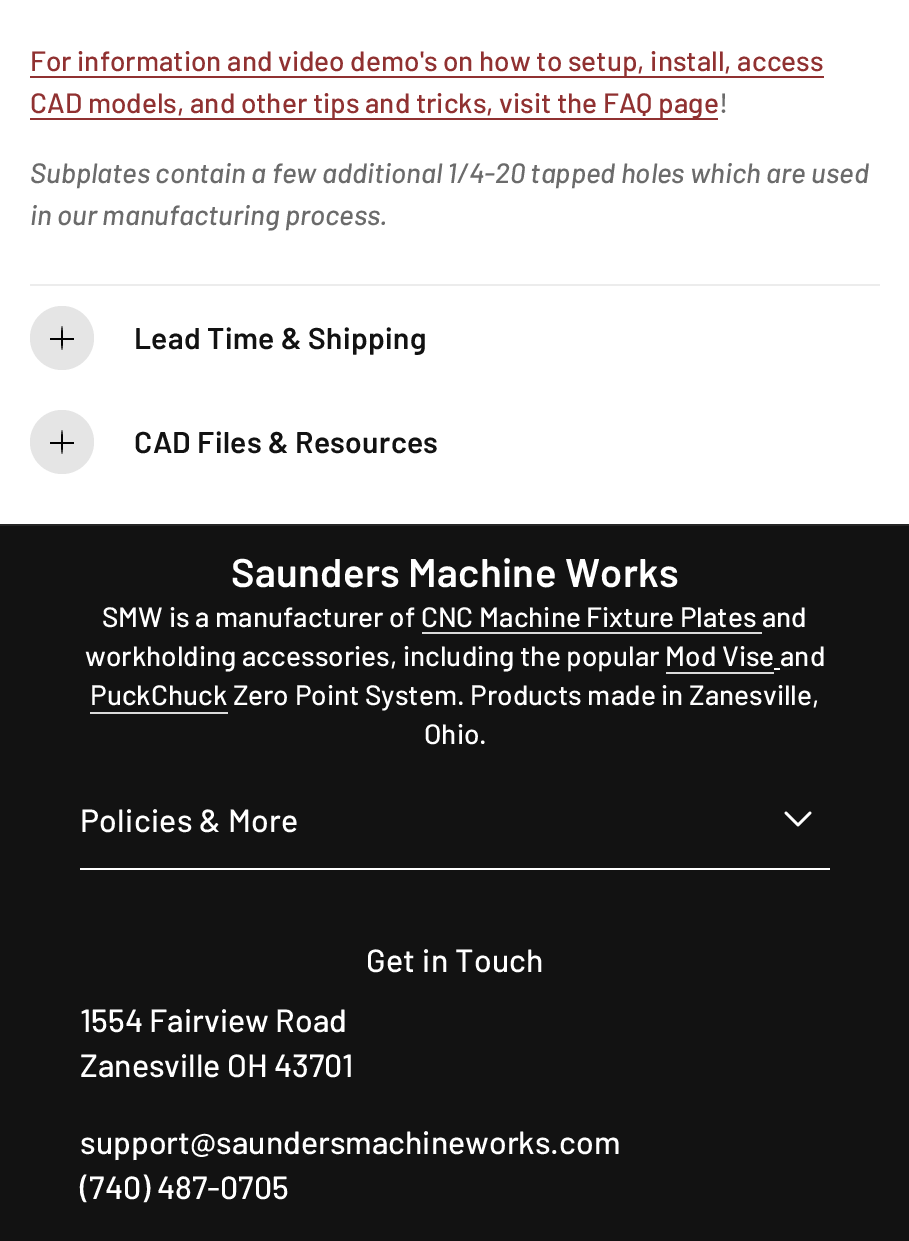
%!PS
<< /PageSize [909 1241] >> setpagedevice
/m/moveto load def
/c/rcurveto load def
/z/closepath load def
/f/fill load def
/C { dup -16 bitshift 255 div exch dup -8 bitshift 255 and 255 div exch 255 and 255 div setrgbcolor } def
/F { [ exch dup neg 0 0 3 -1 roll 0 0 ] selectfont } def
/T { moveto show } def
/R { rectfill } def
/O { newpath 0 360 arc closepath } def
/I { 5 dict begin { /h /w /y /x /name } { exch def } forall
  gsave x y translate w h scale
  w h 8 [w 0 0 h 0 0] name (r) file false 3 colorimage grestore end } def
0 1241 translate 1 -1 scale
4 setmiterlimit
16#FFFFFF C
0 0 909 1241 R
16#903131 C
30 76 794 2 R
/Barlow-Medium 28 F
(For information and video demo's on how to setup, install, access) 30 71 T
30 118 688 2 R
(CAD models, and other tips and tricks, visit the FAQ page) 30 113 T
16#6B6B6B C
(!) 719 113 T
/Barlow-MediumItalic 28 F
(Subplates contain a few additional 1/4-20 tapped holes which are used) 30 183 T
(in our manufacturing process.) 30 225 T
16#ECECEC C
30 284 850 2 R
16#E5E5E5 C
62 338 32 O f
16#000000 C
50 338 24 2 R
62 326 m .5 0 1 5.5 1 12 c 0 6.5 -.5 12 -1 12 c -.5 0 -1 -5.5 -1 -12 c 0 -6.5 .5 -12 1 -12 c z f
/Barlow-SemiBold 30 F
16#121212 C
134 349 m .3 0 (Lead Time & Shipping) ashow
16#E5E5E5 C
62 442 32 O f
16#000000 C
50 442 24 2 R
62 430 m .5 0 1 5.5 1 12 c 0 6.5 -.5 12 -1 12 c -.5 0 -1 -5.5 -1 -12 c 0 -6.5 .5 -12 1 -12 c z f
16#121212 C
134 453 m .3 0 (CAD Files & Resources) ashow
0 526 909 715 R
16#252525 C
0 524 909 2 R
/Barlow-SemiBold 40 F
16#FFFFFF C
231 587 m .3 0 (Saunders Machine Works) ashow
/Barlow-Medium 28 F
(SMW is a manufacturer of CNC Machine Fixture Plates and) 102 627 T
16#DBDBDB C
422 632 340 2 R
16#FFFFFF C
(workholding accessories, including the popular Mod Vise and) 85 666 T
774 668 6 2 R
16#DBDBDB C
666 672 108 2 R
16#FFFFFF C
(PuckChuck Zero Point System. Products made in Zanesville,) 90 705 T
16#DBDBDB C
90 712 138 2 R
16#FFFFFF C
(Ohio.) 424 744 T
80 868 750 2 R
/Barlow-Medium 32 F
80 832 m .3 0 (Policies & More) ashow
(1.rgb) 784 811 28 16 I
366 972 m .3 0 (Get in Touch) ashow
(1554 Fairview Road) 80 1032 T
(Zanesville OH 43701) 80 1077 T
(support@saundersmachineworks.com) 80 1154 T
(\(740\) 487-0705) 80 1199 T
showpage
